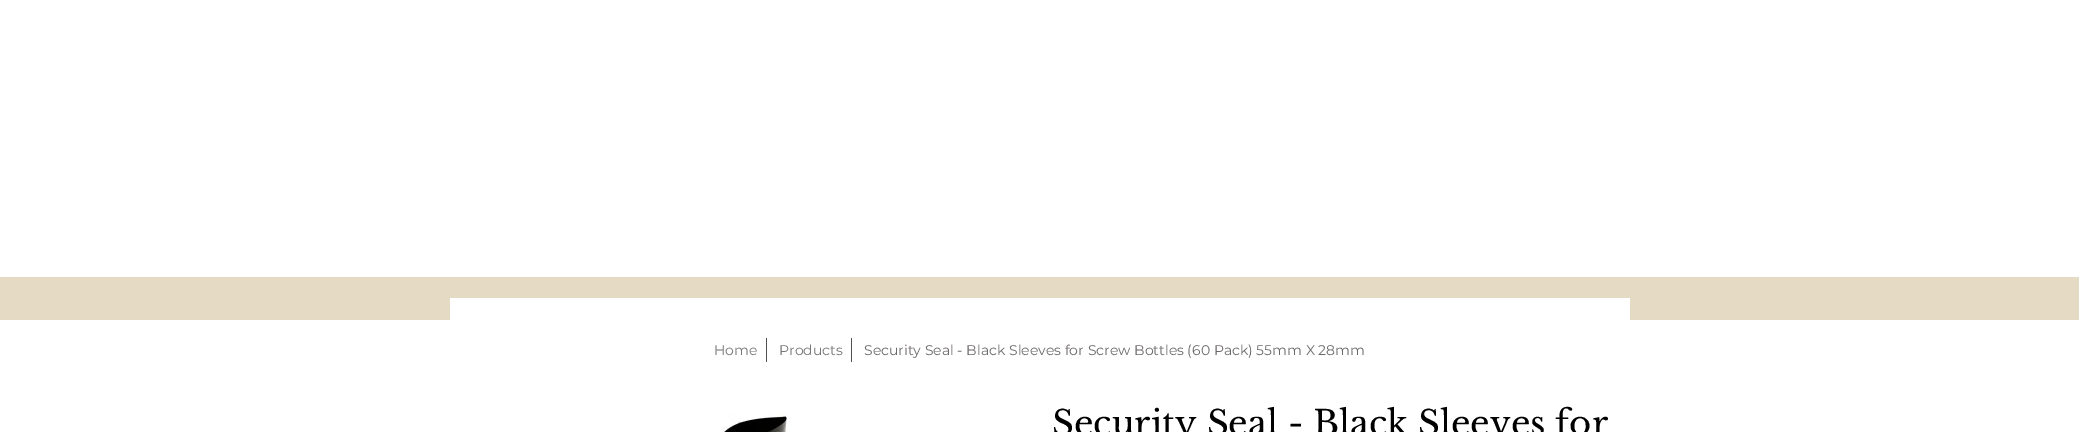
%!PS
<< /PageSize [2079 432] >> setpagedevice
/C { dup -16 bitshift 255 div exch dup -8 bitshift 255 and 255 div exch 255 and 255 div setrgbcolor } def
/F { [ exch dup neg 0 0 3 -1 roll 0 0 ] selectfont } def
/T { moveto show } def
/R { rectfill } def
/I { 5 dict begin { /h /w /y /x /name } { exch def } forall
  gsave x y translate w h scale
  w h 8 [w 0 0 h 0 0] name (r) file false 3 colorimage grestore end } def
0 432 translate 1 -1 scale
4 setmiterlimit
16#FFFFFF C
0 0 2079 432 R
16#E5DAC4 C
0 277 2079 43 R
16#FFFFFF C
450 298 1180 22 R
/Montserrat-Regular 14 F
16#767676 C
(Home) 714 355 T
16#524F4F C
766 338 1 24 R
16#767676 C
(Products) 779 355 T
16#524F4F C
851 338 1 24 R
16#6C6868 C
(Security Seal - Black Sleeves for Screw Bottles \(60 Pack\) 55mm X 28mm) 864 355 T
(1.rgb) 723 412 64 20 I
/LibreBaskerville-Regular 34 F
16#000000 C
(Security Seal - Black Sleeves for) 1052 435 T
showpage
